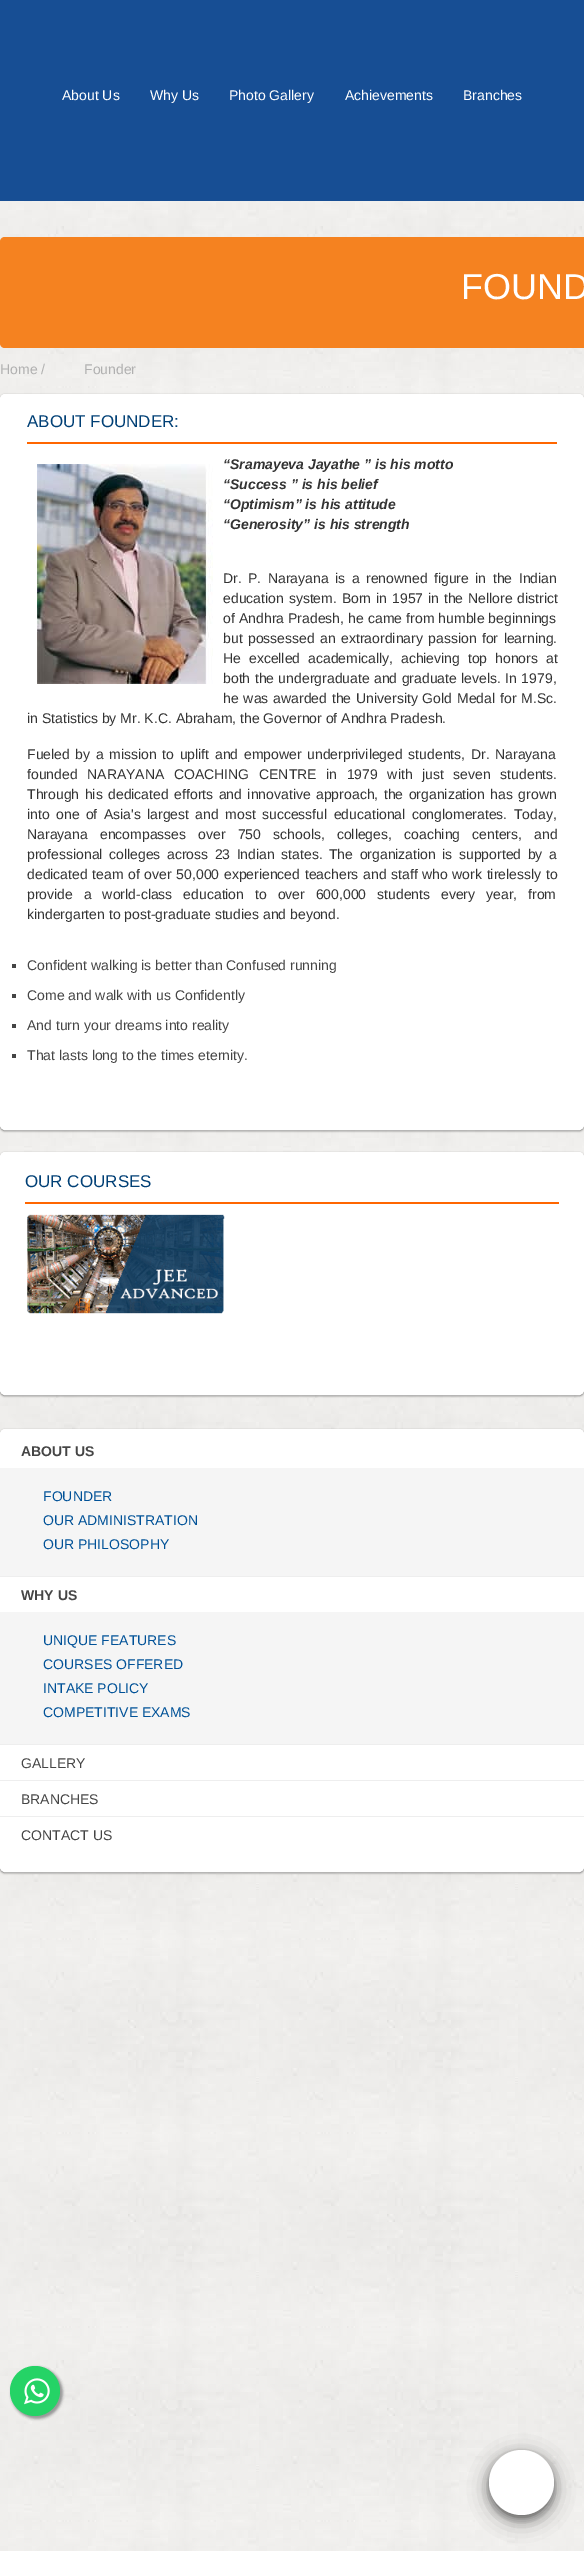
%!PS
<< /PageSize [584 2551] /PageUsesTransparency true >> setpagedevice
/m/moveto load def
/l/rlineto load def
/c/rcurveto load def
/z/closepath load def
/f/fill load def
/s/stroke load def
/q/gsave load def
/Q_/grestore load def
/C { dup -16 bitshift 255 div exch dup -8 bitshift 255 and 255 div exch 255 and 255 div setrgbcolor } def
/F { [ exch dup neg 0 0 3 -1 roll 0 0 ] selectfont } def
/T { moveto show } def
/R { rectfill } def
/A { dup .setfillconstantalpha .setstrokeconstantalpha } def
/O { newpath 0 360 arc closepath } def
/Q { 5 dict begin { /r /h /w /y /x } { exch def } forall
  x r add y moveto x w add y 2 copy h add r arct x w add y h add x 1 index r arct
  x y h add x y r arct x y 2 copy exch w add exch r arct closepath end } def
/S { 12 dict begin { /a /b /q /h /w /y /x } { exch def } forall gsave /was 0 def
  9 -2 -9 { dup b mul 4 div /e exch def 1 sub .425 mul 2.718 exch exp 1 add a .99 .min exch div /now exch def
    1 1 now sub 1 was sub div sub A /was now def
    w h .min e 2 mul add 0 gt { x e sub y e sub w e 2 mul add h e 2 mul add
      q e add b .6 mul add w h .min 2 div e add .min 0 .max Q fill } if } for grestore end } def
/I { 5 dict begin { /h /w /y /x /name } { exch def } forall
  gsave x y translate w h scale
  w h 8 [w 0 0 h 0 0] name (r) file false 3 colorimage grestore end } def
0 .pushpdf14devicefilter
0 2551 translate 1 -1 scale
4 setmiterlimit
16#FFFFFF C
0 0 584 2551 R
(1.rgb) 0 201 584 2350 I
16#174E94 C
0 0 584 201 R
/LiberationSans-Regular 14 F
16#FFFFFF C
(About Us) 62 100 T
(Why Us) 150 100 T
(Photo Gallery) 229 100 T
(Achievements) 345 100 T
(Branches) 463 100 T
16#F58220 C
5 237 m 579 0 l 0 111 l -579 0 l -3 0 -5 -2 -5 -5 c 0 -101 l 0 -3 2 -5 5 -5 c z f
/LiberationSans-Regular 36 F
16#FFFFFF C
(FOUND) 461 299 T
/LiberationSans-Regular 14 F
16#B0B0B0 C
(Home /) 0 374 T
(Founder) 84 374 T
16#000000 C
0 395 584 736 5 1 .5 S
16#FFFFFF C
.5 394.5 583 735 4.5 Q q f Q_
s
16#FF6600 C
27 442 530 2 R
/LiberationSans-Regular 17 F
16#003F75 C
(ABOUT FOUNDER:) 27 427 T
(2.rgb) 37 464 176 220 I
/LiberationSans-BoldItalic 14 F
16#333333 C
(“Sramayeva Jayathe ” is his motto) 223 469 T
(“Success ” is his belief) 223 489 T
(“Optimism” is his attitude) 223 509 T
(“Generosity” is his strength) 223 529 T
/LiberationSans-Regular 14 F
223 583 m 2.6 0 32 (Dr. P. Narayana is a renowned figure in the Indian) widthshow
223 603 m 1 0 32 (education system. Born in 1957 in the Nellore district) widthshow
223 623 m .25 0 32 (of Andhra Pradesh, he came from humble beginnings) widthshow
223 643 m 1.5 0 32 (but possessed an extraordinary passion for learning.) widthshow
223 663 m 4 0 32 (He excelled academically, achieving top honors at) widthshow
223 683 m .5 0 32 (both the undergraduate and graduate levels. In 1979,) widthshow
223 703 m 1 0 32 (he was awarded the University Gold Medal for M.Sc.) widthshow
(in Statistics by Mr. K.C. Abraham, the Governor of Andhra Pradesh.) 27 723 T
27 759 m 1.75 0 32 (Fueled by a mission to uplift and empower underprivileged students, Dr. Narayana) widthshow
27 779 m 5.75 0 32 (founded NARAYANA COACHING CENTRE in 1979 with just seven students.) widthshow
27 799 m 1.6 0 32 (Through his dedicated efforts and innovative approach, the organization has grown) widthshow
27 819 m 2.5 0 32 (into one of Asia's largest and most successful educational conglomerates. Today,) widthshow
27 839 m 8.25 0 32 (Narayana encompasses over 750 schools, colleges, coaching centers, and) widthshow
27 859 m 2.6 0 32 (professional colleges across 23 Indian states. The organization is supported by a) widthshow
27 879 m .75 0 32 (dedicated team of over 50,000 experienced teachers and staff who work tirelessly to) widthshow
27 899 m 7 0 32 (provide a world-class education to over 600,000 students every year, from) widthshow
(kindergarten to post-graduate studies and beyond.) 27 919 T
16#454545 C
12 964 4 4 R
(Confident walking is better than Confused running) 27 970 T
12 994 4 4 R
(Come and walk with us Confidently) 27 1000 T
12 1024 4 4 R
(And turn your dreams into reality) 27 1030 T
12 1054 4 4 R
(That lasts long to the times eternity.) 27 1060 T
16#000000 C
0 1153 584 243 5 1 .5 S
16#FFFFFF C
.5 1152.5 583 242 4.5 Q q f Q_
s
16#FF6600 C
25 1202 534 2 R
/LiberationSans-Regular 17 F
16#003F75 C
(OUR COURSES) 25 1187 T
(3.rgb) 27 1214 198 100 I
16#000000 C
0 1430 584 443 5 1 .5 S
16#FFFFFF C
.5 1429.5 583 442 4.5 Q q f Q_
s
/LiberationSans-Bold 14 F
16#454545 C
(ABOUT US) 21 1456 T
16#F5F5F5 C
0 1468 584 108 R
/LiberationSans-Regular 14 F
16#005197 C
(FOUNDER) 43 1501 T
(OUR ADMINISTRATION) 43 1525 T
(OUR PHILOSOPHY) 43 1549 T
16#EEEEEE C
0 1576 584 1 R
/LiberationSans-Bold 14 F
16#454545 C
(WHY US) 21 1600 T
16#F5F5F5 C
0 1612 584 132 R
/LiberationSans-Regular 14 F
16#005197 C
(UNIQUE FEATURES) 43 1645 T
(COURSES OFFERED) 43 1669 T
(INTAKE POLICY) 43 1693 T
(COMPETITIVE EXAMS) 43 1717 T
16#EEEEEE C
0 1744 584 1 R
16#454545 C
(GALLERY) 21 1768 T
16#EEEEEE C
0 1780 584 1 R
16#454545 C
(BRANCHES) 21 1804 T
16#EEEEEE C
0 1816 584 1 R
16#454545 C
(CONTACT US) 21 1840 T
16#999999 C
12 2368 50 50 25 1.5 1 S
12 2368 50 50 25 1.5 1 S
16#25D366 C
35 2391 25 O f
(4.rgb) 24 2378 26 27 I
16#000000 C
489 2456 65 65 32.5 10 .19 S
489 2454 65 65 32.5 4 .2 S
489 2456 65 65 32.5 10 .19 S
489 2454 65 65 32.5 4 .2 S
16#FFFFFF C
521.5 2482.5 32.5 O f
.poppdf14devicefilter showpage
